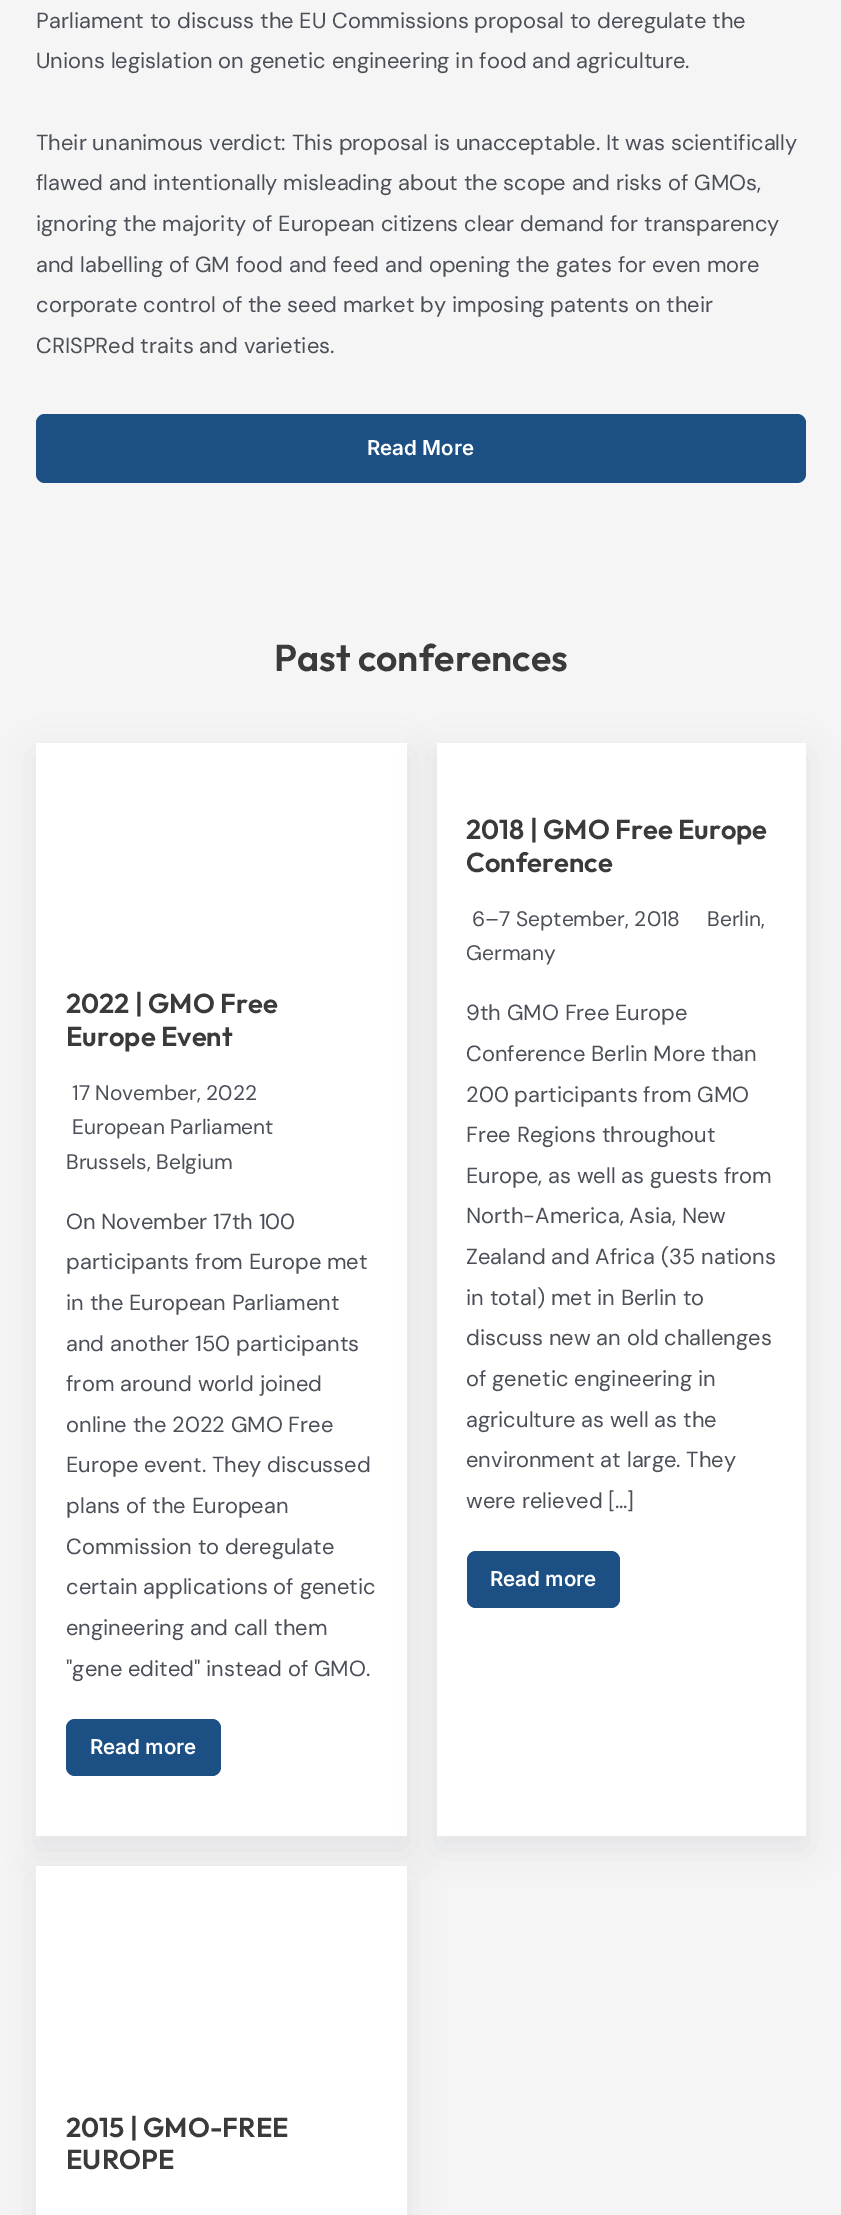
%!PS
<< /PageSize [841 2215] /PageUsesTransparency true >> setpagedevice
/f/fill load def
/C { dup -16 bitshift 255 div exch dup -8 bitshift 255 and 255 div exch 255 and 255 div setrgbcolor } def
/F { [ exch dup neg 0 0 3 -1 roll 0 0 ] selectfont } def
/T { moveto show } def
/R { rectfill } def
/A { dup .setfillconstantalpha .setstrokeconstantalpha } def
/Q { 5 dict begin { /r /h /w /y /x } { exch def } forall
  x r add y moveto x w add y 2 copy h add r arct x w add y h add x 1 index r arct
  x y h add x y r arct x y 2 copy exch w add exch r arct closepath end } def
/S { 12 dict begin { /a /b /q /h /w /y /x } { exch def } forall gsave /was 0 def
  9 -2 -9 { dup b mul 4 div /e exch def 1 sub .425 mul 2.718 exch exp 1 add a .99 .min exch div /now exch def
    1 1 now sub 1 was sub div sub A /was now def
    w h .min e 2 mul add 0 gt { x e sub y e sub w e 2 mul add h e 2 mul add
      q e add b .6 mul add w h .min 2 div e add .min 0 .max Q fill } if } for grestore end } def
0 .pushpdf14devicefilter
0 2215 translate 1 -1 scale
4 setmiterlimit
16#F5F5F5 C
0 0 841 2215 R
/DMSans-Regular 21.9 F
16#4B4F58 C
(Parliament to discuss the EU Commissions proposal to deregulate the) 36 28 T
(Unions legislation on genetic engineering in food and agriculture.) 36 68 T
(Their unanimous verdict: This proposal is unacceptable. It was scientifically) 36 150 T
(flawed and intentionally misleading about the scope and risks of GMOs,) 36 190 T
(ignoring the majority of European citizens clear demand for transparency) 36 231 T
(and labelling of GM food and feed and opening the gates for even more) 36 272 T
(corporate control of the seed market by imposing patents on their) 36 312 T
(CRISPRed traits and varieties.) 36 353 T
16#1C4F84 C
36 414 770 69 9 Q f
/Inter-SemiBold 20.5 F
16#FFFFFF C
(Read More) 367 455 T
/Outfit-SemiBold 37.5 F
16#3A3A3A C
(Past conferences) 274 671 T
16#959DA5 C
36 755 371 1093 0 18 .2 S
16#FFFFFF C
36 743 371 1093 R
/Outfit-SemiBold 27.4 F
16#3A3A3A C
(2022 | GMO Free) 66 1013 T
(Europe Event) 66 1046 T
/DMSans-Regular 21 F
16#4B4F58 C
(17 November, 2022) 72 1100 T
(European Parliament) 72 1134 T
(Brussels, Belgium) 66 1169 T
/DMSans-Regular 21.9 F
(On November 17th 100) 66 1229 T
(participants from Europe met) 66 1269 T
(in the European Parliament) 66 1310 T
(and another 150 participants) 66 1351 T
(from around world joined) 66 1391 T
(online the 2022 GMO Free) 66 1432 T
(Europe event. They discussed) 66 1472 T
(plans of the European) 66 1513 T
(Commission to deregulate) 66 1554 T
(certain applications of genetic) 66 1594 T
(engineering and call them) 66 1635 T
("gene edited" instead of GMO.) 66 1676 T
16#1C4F84 C
66 1719 155 57 9 Q f
/Inter-SemiBold 20.5 F
16#FFFFFF C
(Read more) 90 1754 T
16#959DA5 C
437 755 369 1093 0 18 .2 S
16#FFFFFF C
437 743 369 1093 R
/Outfit-SemiBold 27.4 F
16#3A3A3A C
(2018 | GMO Free Europe) 466 839 T
(Conference) 466 872 T
/DMSans-Regular 21 F
16#4B4F58 C
(6–7 September, 2018) 472 926 T
(Berlin,) 707 926 T
(Germany) 466 960 T
/DMSans-Regular 21.9 F
(9th GMO Free Europe) 466 1020 T
(Conference Berlin More than) 466 1061 T
(200 participants from GMO) 466 1102 T
(Free Regions throughout) 466 1142 T
(Europe, as well as guests from) 466 1183 T
(North-America, Asia, New) 466 1223 T
(Zealand and Africa \(35 nations) 466 1264 T
(in total\) met in Berlin to) 466 1305 T
(discuss new an old challenges) 466 1345 T
(of genetic engineering in) 466 1386 T
(agriculture as well as the) 466 1427 T
(environment at large. They) 466 1467 T
(were relieved […]) 466 1508 T
16#1C4F84 C
467 1551 153 57 9 Q f
/Inter-SemiBold 20.5 F
16#FFFFFF C
(Read more) 490 1586 T
16#959DA5 C
36 1878 371 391 0 18 .2 S
16#FFFFFF C
36 1866 371 349 R
/Outfit-SemiBold 27.4 F
16#3A3A3A C
(2015 | GMO-FREE) 66 2137 T
(EUROPE) 66 2169 T
.poppdf14devicefilter showpage
